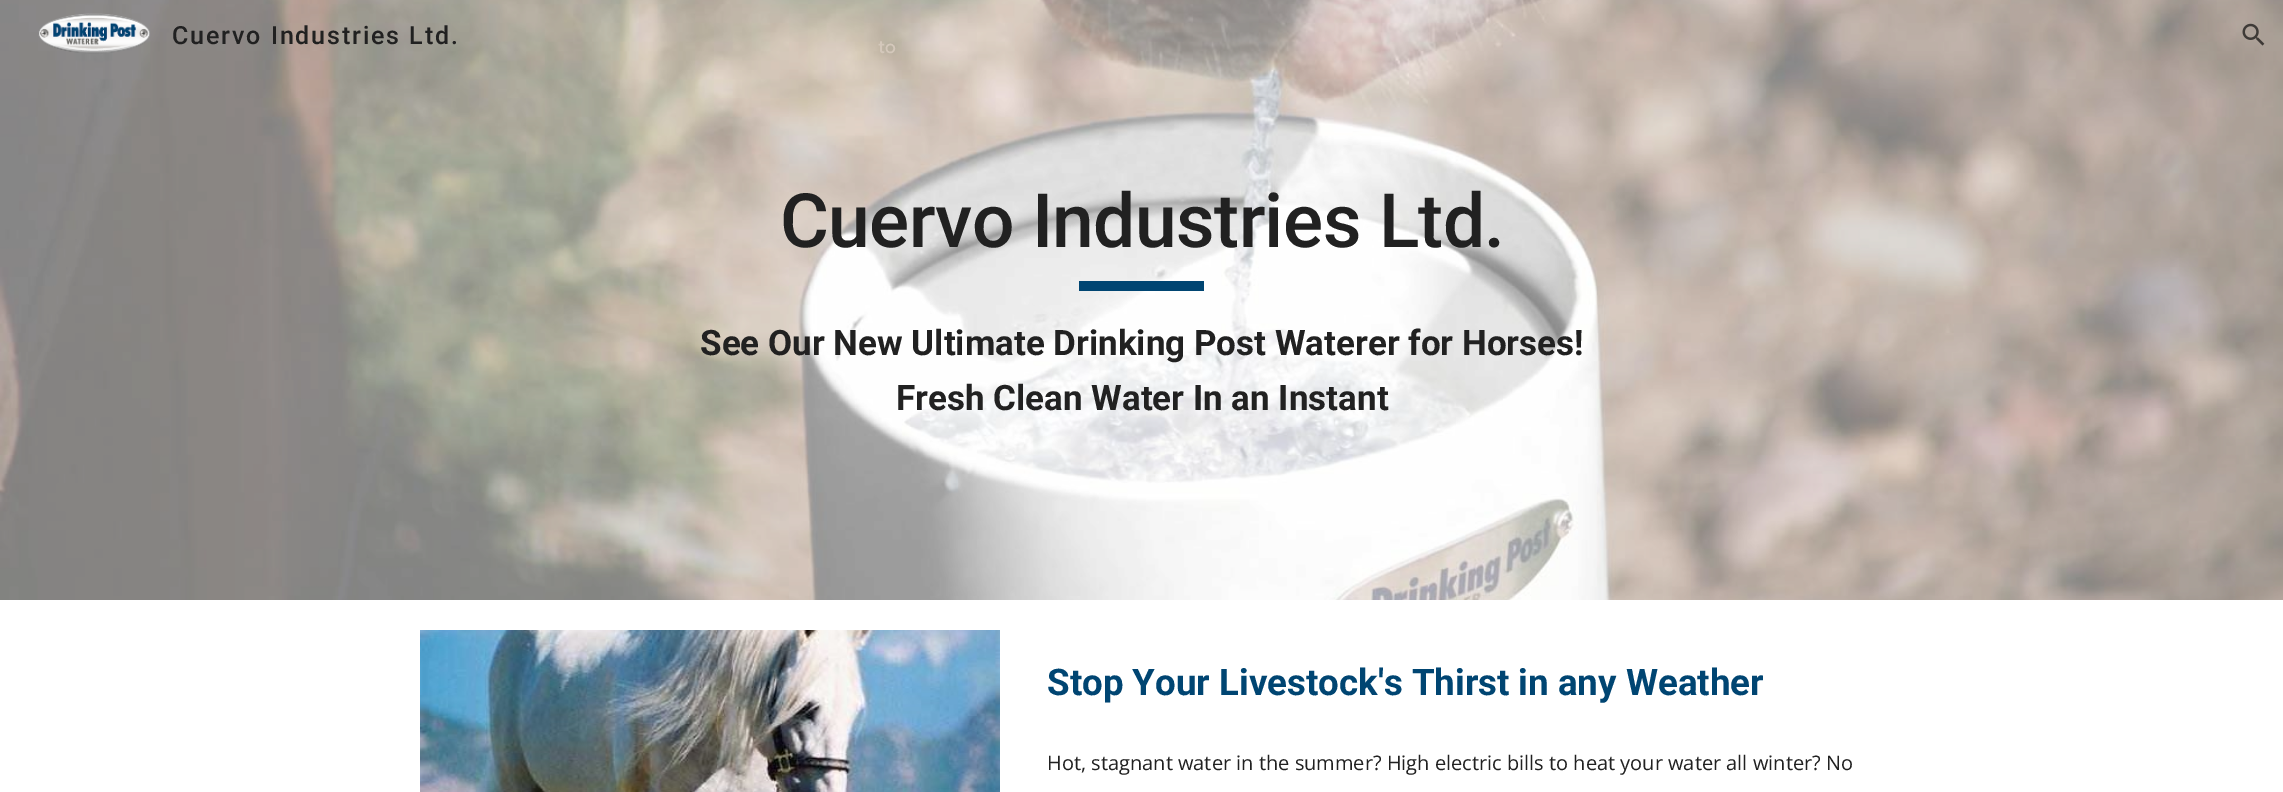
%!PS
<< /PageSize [2283 792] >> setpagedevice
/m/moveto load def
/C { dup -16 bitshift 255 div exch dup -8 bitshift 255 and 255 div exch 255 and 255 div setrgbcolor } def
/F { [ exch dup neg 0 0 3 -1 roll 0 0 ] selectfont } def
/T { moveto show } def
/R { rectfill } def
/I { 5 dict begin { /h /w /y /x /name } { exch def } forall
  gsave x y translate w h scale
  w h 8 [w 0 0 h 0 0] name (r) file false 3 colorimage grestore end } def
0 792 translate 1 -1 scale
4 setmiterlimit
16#FFFFFF C
0 0 2283 792 R
(3.rgb) 0 0 2283 600 I
(1.rgb) 38 13 112 41 I
/Roboto-Medium 25 F
16#212121 C
172 44 m 1.9 0 (Cuervo Industries Ltd.) ashow
(2.rgb) 2242 23 23 23 I
/Roboto-Medium 75 F
780 247 m -.6 0 (Cuervo Industries Ltd.) ashow
16#004572 C
1079 281 125 10 R
/Roboto-Bold 35 F
16#212121 C
(See Our New Ultimate Drinking Post Waterer for Horses!) 700 355 T
(Fresh Clean Water In an Instant) 896 410 T
(4.rgb) 420 630 580 162 I
/Roboto-Bold 36.7 F
16#004572 C
(Stop Your Livestock's Thirst in any Weather) 1047 695 T
/OpenSans-Regular 20 F
16#212121 C
(Hot, stagnant water in the summer? High electric bills to heat your water all winter? No) 1047 770 T
/GoogleSans-Medium 18 F
16#D4C8BB C
(to) 878 53 T
showpage
